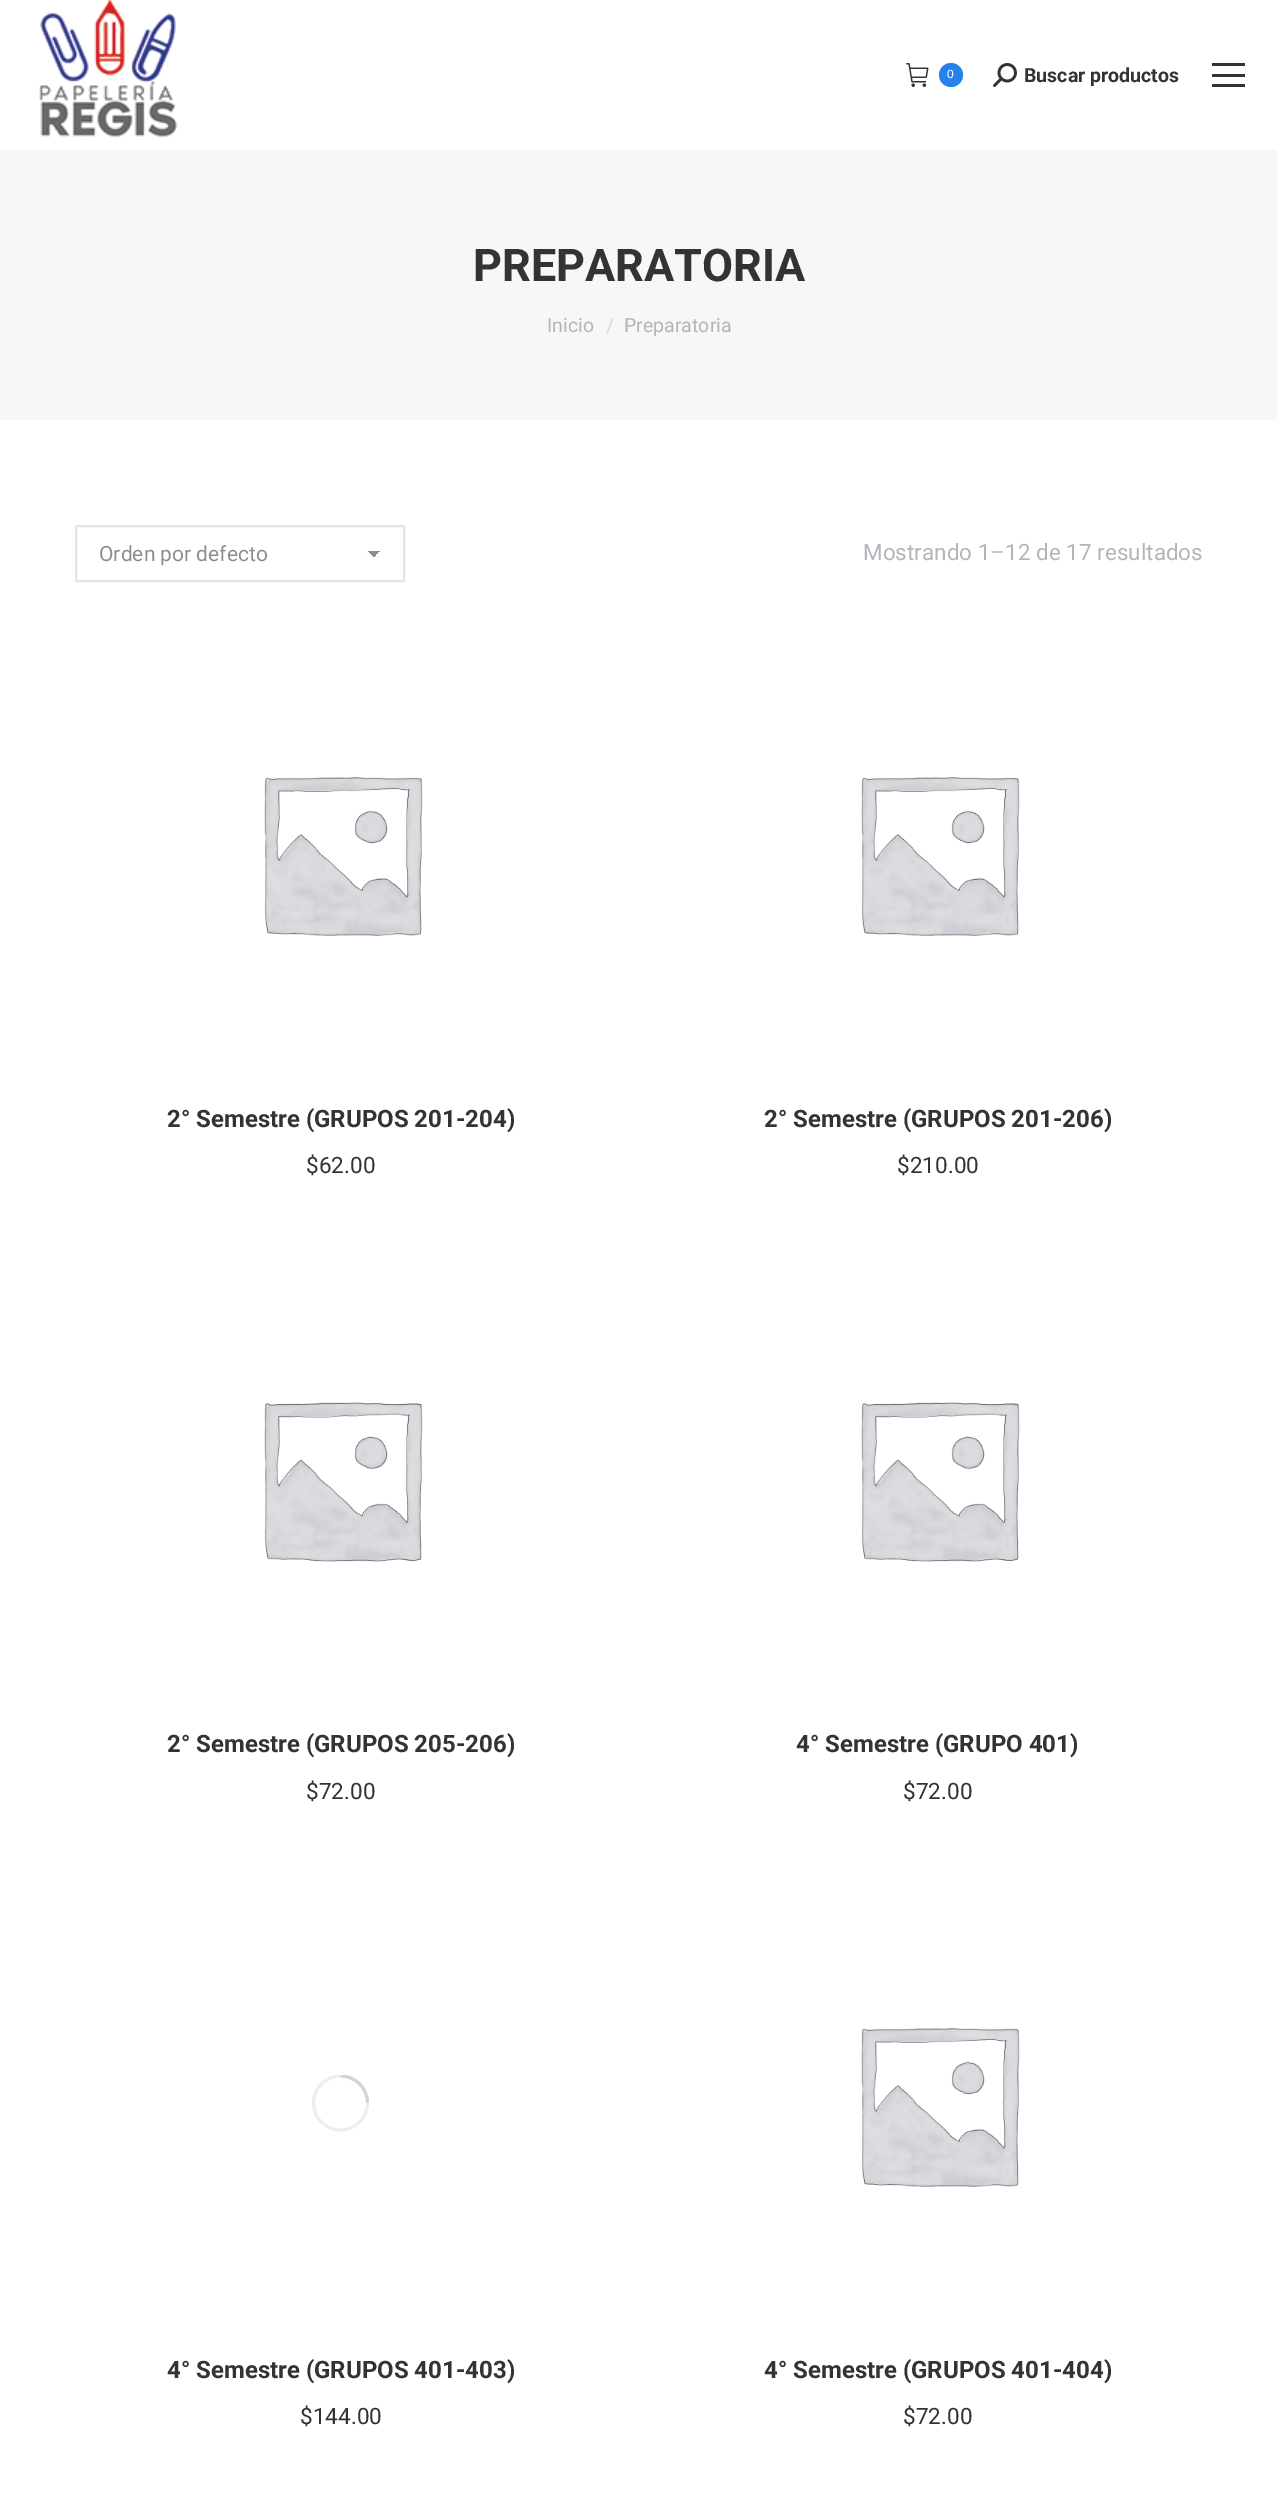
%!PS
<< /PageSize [1277 2510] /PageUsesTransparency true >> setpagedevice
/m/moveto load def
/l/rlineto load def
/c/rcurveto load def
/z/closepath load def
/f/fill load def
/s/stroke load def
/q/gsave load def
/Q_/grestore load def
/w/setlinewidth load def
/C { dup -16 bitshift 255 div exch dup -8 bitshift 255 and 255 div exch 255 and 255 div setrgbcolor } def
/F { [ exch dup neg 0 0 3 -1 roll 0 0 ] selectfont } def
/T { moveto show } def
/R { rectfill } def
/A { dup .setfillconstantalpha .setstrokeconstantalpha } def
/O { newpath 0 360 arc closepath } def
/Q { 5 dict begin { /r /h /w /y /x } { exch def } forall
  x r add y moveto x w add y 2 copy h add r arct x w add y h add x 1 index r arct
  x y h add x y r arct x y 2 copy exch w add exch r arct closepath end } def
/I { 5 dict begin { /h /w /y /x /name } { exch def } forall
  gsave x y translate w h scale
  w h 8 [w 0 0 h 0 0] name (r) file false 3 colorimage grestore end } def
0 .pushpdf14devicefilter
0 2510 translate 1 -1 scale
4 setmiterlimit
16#FFFFFF C
0 0 1277 2510 R
(1.rgb) 39 0 139 137 I
(2.rgb) 906 63 23 24 I
16#2582ED C
951 75 12 O f
/LiberationSans-Regular 12 F
16#FFFFFF C
(0) 947 78 T
(3.rgb) 993 63 24 24 I
/Roboto-Bold 19.5 F
16#333333 C
(Buscar productos) 1024 82 T
1212 63 33 3 R
1212 74 33 3 R
1212 84 33 3 R
16#F7F7F7 C
0 150 1277 270 R
/Roboto-Bold 45 F
16#333333 C
(PREPARATORIA) 473 281 T
/Roboto-Regular 19.5 F
16#B4B5BB C
(Inicio) 547 332 T
16#D6D6D9 C
(/) 606 332 T
16#B4B5BB C
(Preparatoria) 624 332 T
q 374 551 m 7 0 l 0 6 l -7 0 l z clip newpath
<< /ShadingType 2 /ColorSpace /DeviceRGB /Coords [374 550 381 557] /Extend [true true] /Function << /FunctionType 3 /Domain [0 1] /Functions [<< /FunctionType 2 /Domain [0 1] /C0 [.545 .553 .58] /C1 [.545 .553 .58] /N 1 >> << /FunctionType 2 /Domain [0 1] /C0 [.992 .992 .992] /C1 [.992 .992 .992] /N 1 >>] /Bounds [.5] /Encode [0 1 0 1] >> >> shfill Q_
q 366 551 m 8 0 l 0 6 l -8 0 l z clip newpath
<< /ShadingType 2 /ColorSpace /DeviceRGB /Coords [366 557 374 550] /Extend [true true] /Function << /FunctionType 3 /Domain [0 1] /Functions [<< /FunctionType 2 /Domain [0 1] /C0 [.992 .992 .992] /C1 [.992 .992 .992] /N 1 >> << /FunctionType 2 /Domain [0 1] /C0 [.545 .553 .58] /C1 [.545 .553 .58] /N 1 >>] /Bounds [.5] /Encode [0 1 0 1] >> >> shfill Q_
16#E5E5E5 C
2 w
76 526 328 55 .5 Q s
/Roboto-Regular 21 F
16#8B8D94 C
(Orden por defecto) 99 561 T
/Roboto-Regular 22.5 F
16#B4B5BB C
(Mostrando 1–12 de 17 resultados) 863 560 T
(4.rgb) 264 777 159 159 I
/Roboto-Bold 24 F
16#333333 C
(2° Semestre \(GRUPOS 201-204\)) 167 1127 T
/Roboto-Regular 22.5 F
($62.00) 306 1173 T
(4.rgb) 861 777 159 159 I
/Roboto-Bold 24 F
(2° Semestre \(GRUPOS 201-206\)) 764 1127 T
/Roboto-Regular 22.5 F
($210.00) 897 1173 T
(5.rgb) 264 1402 159 160 I
/Roboto-Bold 24 F
(2° Semestre \(GRUPOS 205-206\)) 167 1752 T
/Roboto-Regular 22.5 F
($72.00) 306 1799 T
(5.rgb) 861 1402 159 160 I
/Roboto-Bold 24 F
(4° Semestre \(GRUPO 401\)) 796 1752 T
/Roboto-Regular 22.5 F
($72.00) 903 1799 T
q
312 2075 57 57 rectclip
16#EEEEEF C
3 w
340.5 2103 27 O s
0.25 A
16#85868C C
367.5 2103 m 0 -15 -12 -27 -27 -27 c s
Q_
/Roboto-Bold 24 F
(4° Semestre \(GRUPOS 401-403\)) 167 2378 T
/Roboto-Regular 22.5 F
($144.00) 300 2424 T
(4.rgb) 861 2028 159 159 I
/Roboto-Bold 24 F
(4° Semestre \(GRUPOS 401-404\)) 764 2378 T
/Roboto-Regular 22.5 F
($72.00) 903 2424 T
.poppdf14devicefilter showpage
